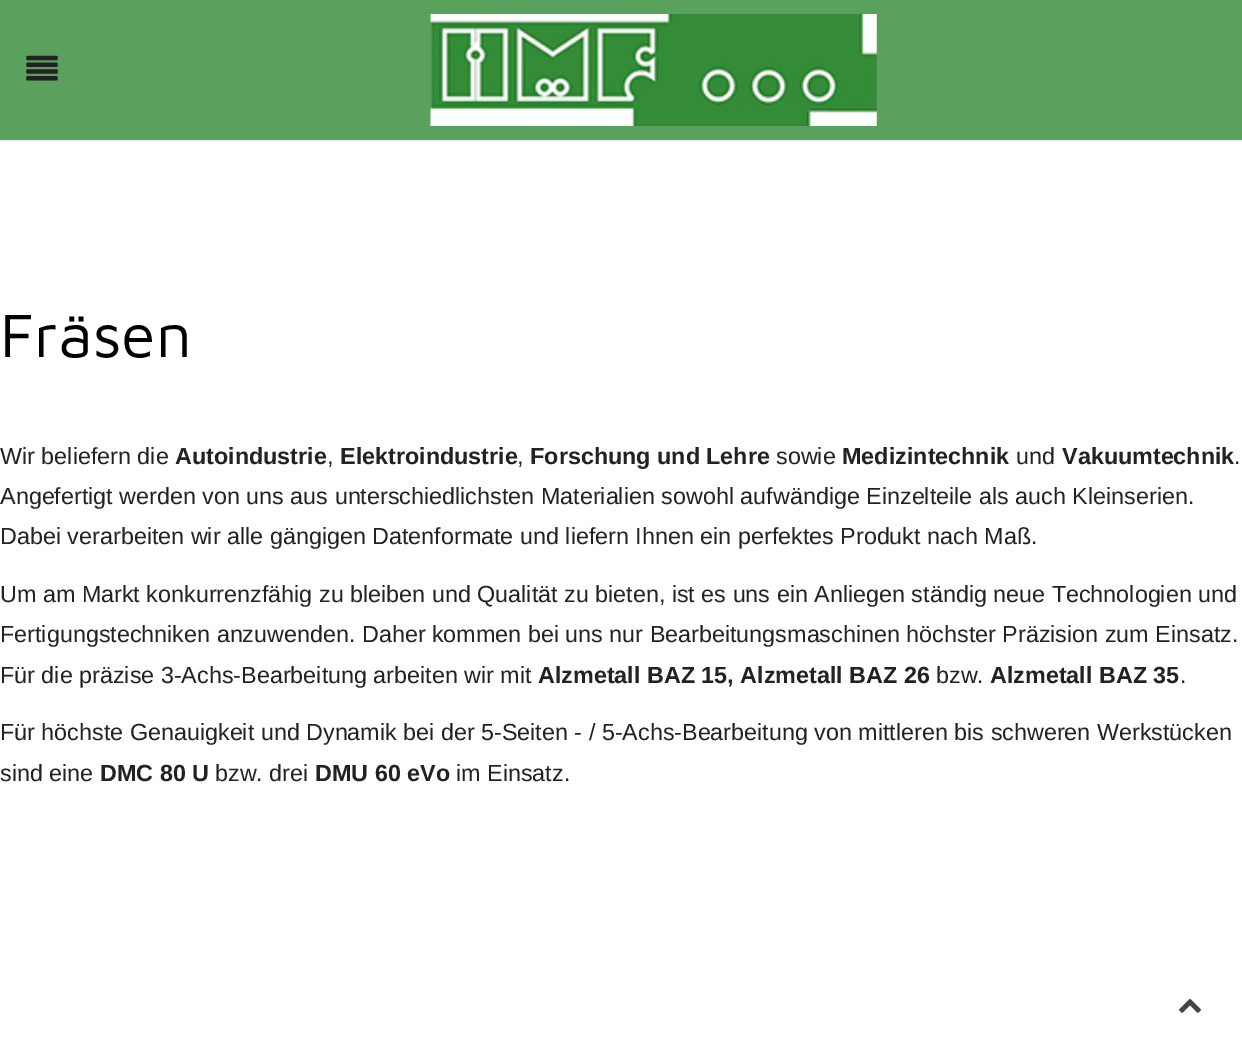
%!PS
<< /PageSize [1242 1056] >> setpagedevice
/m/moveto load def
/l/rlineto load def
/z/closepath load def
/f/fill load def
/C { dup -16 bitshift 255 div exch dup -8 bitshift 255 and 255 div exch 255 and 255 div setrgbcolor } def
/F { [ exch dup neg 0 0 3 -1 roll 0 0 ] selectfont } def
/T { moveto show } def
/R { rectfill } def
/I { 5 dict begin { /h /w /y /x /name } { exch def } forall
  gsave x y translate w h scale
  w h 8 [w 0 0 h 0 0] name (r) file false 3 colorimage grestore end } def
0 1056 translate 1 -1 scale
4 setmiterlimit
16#FFFFFF C
0 0 1242 1056 R
16#EBEBEB C
0 140 m 0 2 l 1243 0 l 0 -140 l -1 0 l 0 138 l z f
16#5BA15E C
0 0 1242 140 R
(1.rgb) 26 55 32 26 I
(2.rgb) 430 14 447 112 I
/MavenPro-Regular 63 F
16#000000 C
(Fräsen) 0 357 T
/LiberationSans-Regular 23.33 F
16#222222 C
(Wir beliefern die) 0 464 T
/LiberationSans-Bold 23.33 F
(Autoindustrie) 175 464 T
/LiberationSans-Regular 23.33 F
(,) 327 464 T
/LiberationSans-Bold 23.33 F
(Elektroindustrie) 340 464 T
/LiberationSans-Regular 23.33 F
(,) 517 464 T
/LiberationSans-Bold 23.33 F
(Forschung und Lehre) 530 464 T
/LiberationSans-Regular 23.33 F
(sowie) 776 464 T
/LiberationSans-Bold 23.33 F
(Medizintechnik) 842 464 T
/LiberationSans-Regular 23.33 F
(und) 1016 464 T
/LiberationSans-Bold 23.33 F
(Vakuumtechnik) 1062 464 T
/LiberationSans-Regular 23.33 F
(.) 1234 464 T
(Angefertigt werden von uns aus unterschiedlichsten Materialien sowohl aufwändige Einzelteile als auch Kleinserien.) 0 504 T
(Dabei verarbeiten wir alle gängigen Datenformate und liefern Ihnen ein perfektes Produkt nach Maß.) 0 544 T
(Um am Markt konkurrenzfähig zu bleiben und Qualität zu bieten, ist es uns ein Anliegen ständig neue Technologien und) 0 602 T
(Fertigungstechniken anzuwenden. Daher kommen bei uns nur Bearbeitungsmaschinen höchster Präzision zum Einsatz.) 0 642 T
(Für die präzise 3-Achs-Bearbeitung arbeiten wir mit) 0 683 T
/LiberationSans-Bold 23.33 F
(Alzmetall BAZ 15, Alzmetall BAZ 26) 538 683 T
/LiberationSans-Regular 23.33 F
(bzw.) 936 683 T
/LiberationSans-Bold 23.33 F
(Alzmetall BAZ 35) 990 683 T
/LiberationSans-Regular 23.33 F
(.) 1180 683 T
(Für höchste Genauigkeit und Dynamik bei der 5-Seiten - / 5-Achs-Bearbeitung von mittleren bis schweren Werkstücken) 0 740 T
(sind eine) 0 781 T
/LiberationSans-Bold 23.33 F
(DMC 80 U) 100 781 T
/LiberationSans-Regular 23.33 F
(bzw. drei) 215 781 T
/LiberationSans-Bold 23.33 F
(DMU 60 eVo) 315 781 T
/LiberationSans-Regular 23.33 F
(im Einsatz.) 456 781 T
(3.rgb) 1179 998 22 15 I
showpage
